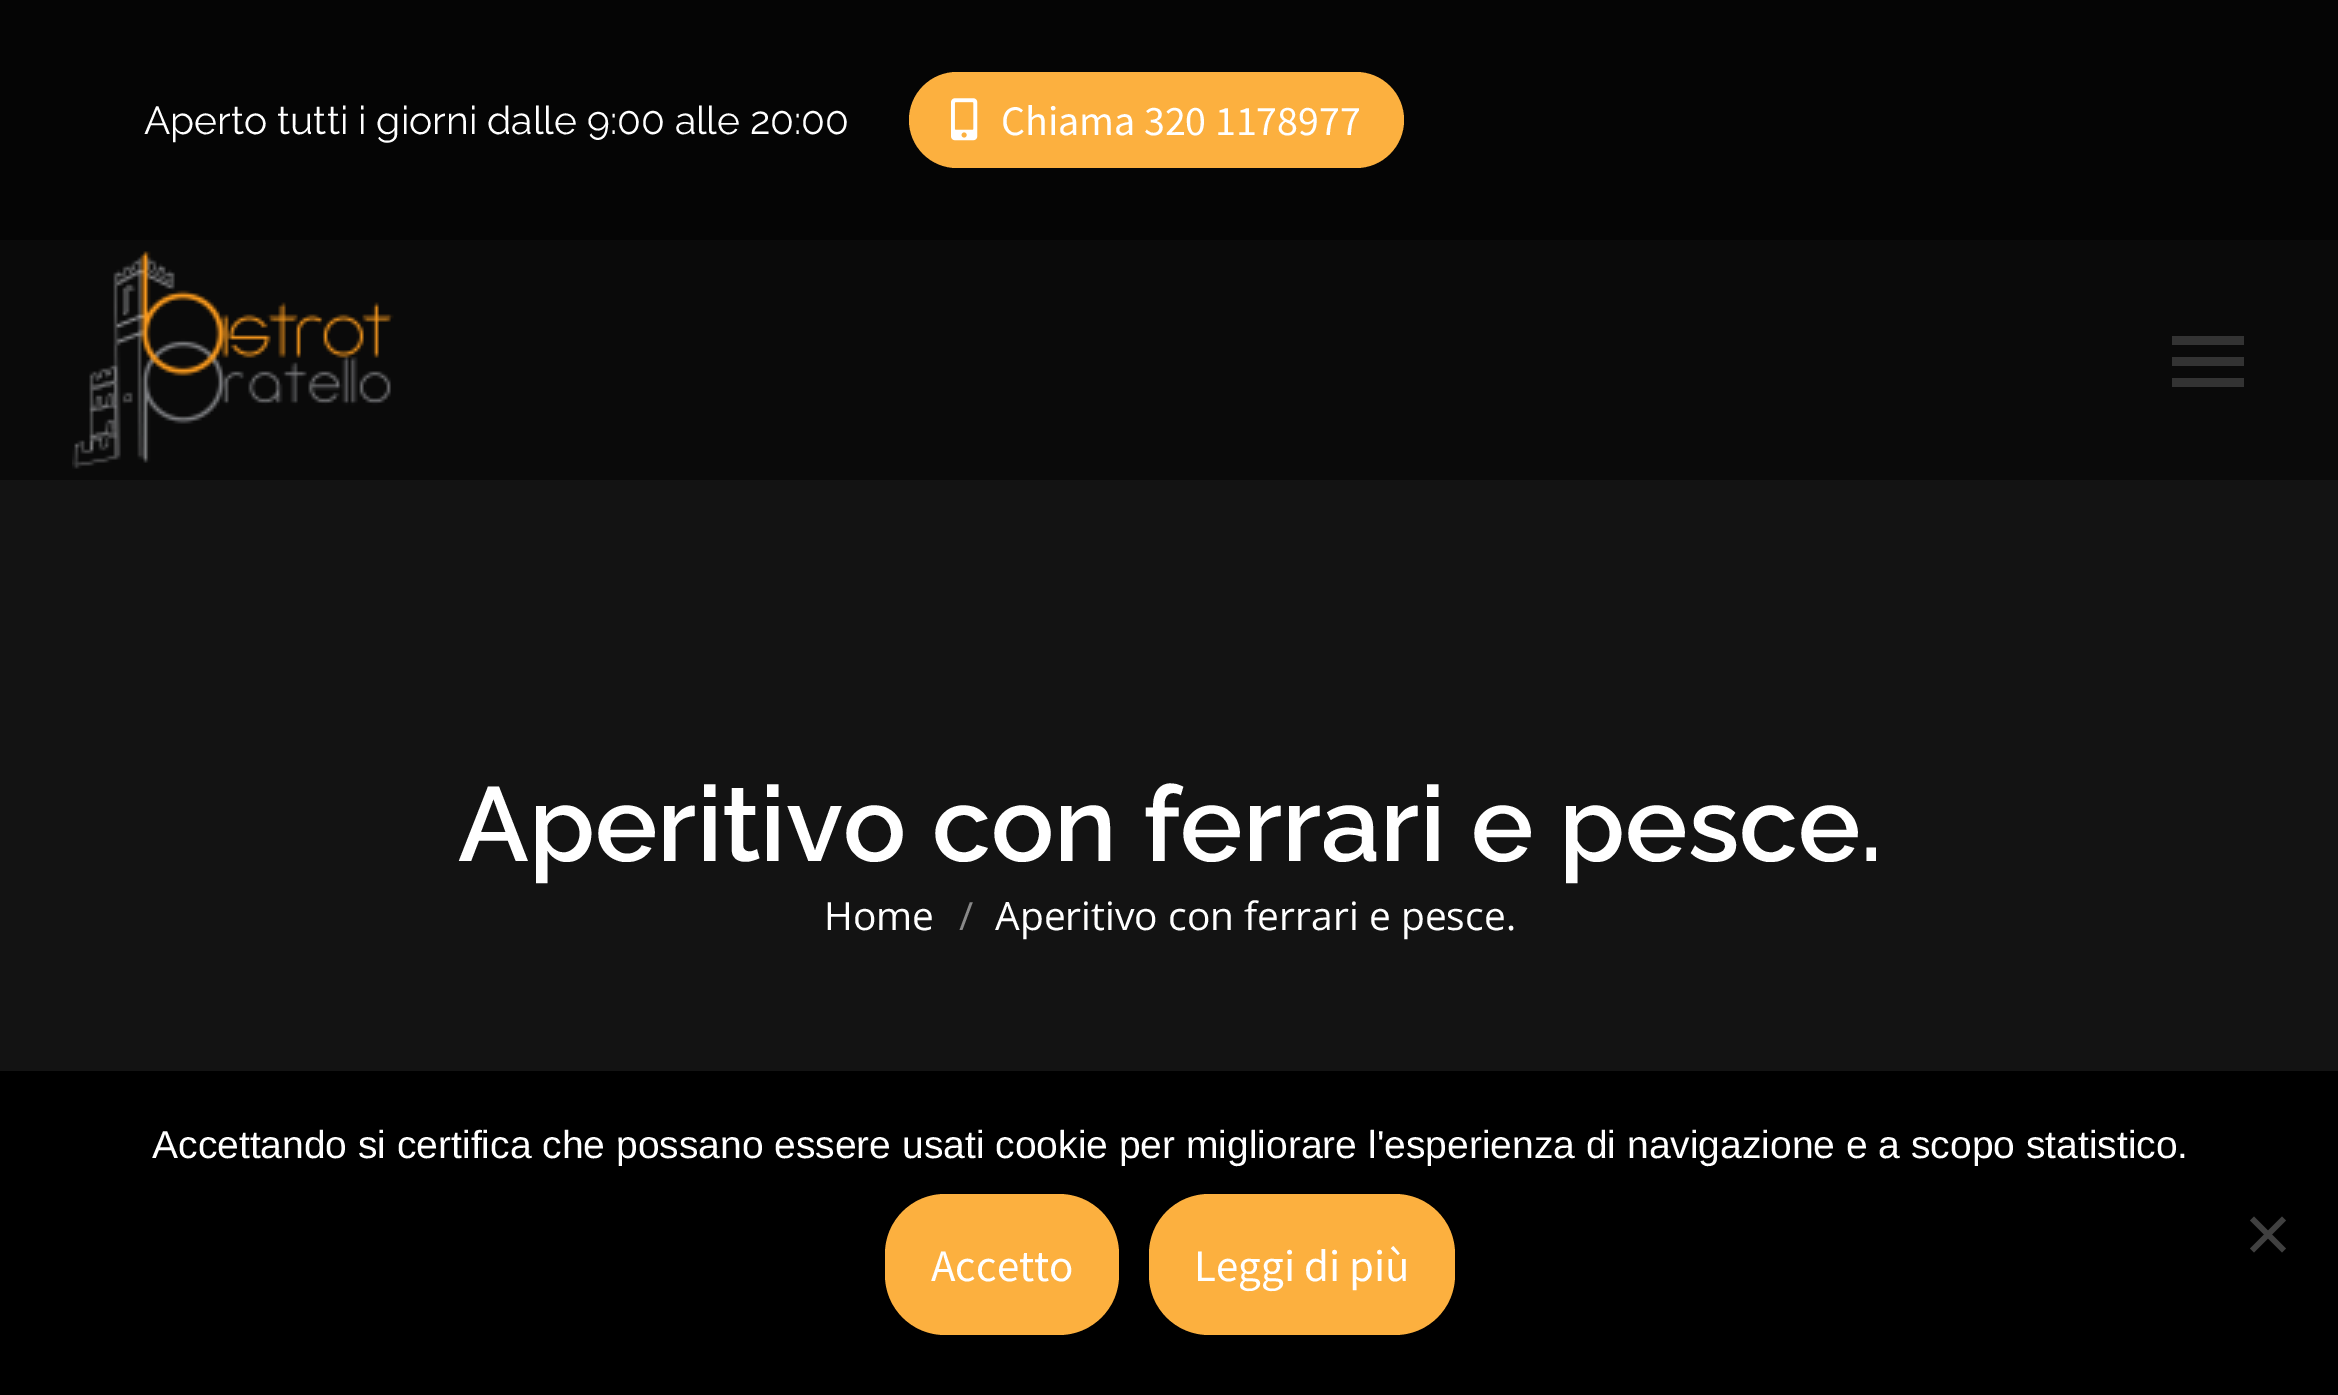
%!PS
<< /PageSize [2338 1395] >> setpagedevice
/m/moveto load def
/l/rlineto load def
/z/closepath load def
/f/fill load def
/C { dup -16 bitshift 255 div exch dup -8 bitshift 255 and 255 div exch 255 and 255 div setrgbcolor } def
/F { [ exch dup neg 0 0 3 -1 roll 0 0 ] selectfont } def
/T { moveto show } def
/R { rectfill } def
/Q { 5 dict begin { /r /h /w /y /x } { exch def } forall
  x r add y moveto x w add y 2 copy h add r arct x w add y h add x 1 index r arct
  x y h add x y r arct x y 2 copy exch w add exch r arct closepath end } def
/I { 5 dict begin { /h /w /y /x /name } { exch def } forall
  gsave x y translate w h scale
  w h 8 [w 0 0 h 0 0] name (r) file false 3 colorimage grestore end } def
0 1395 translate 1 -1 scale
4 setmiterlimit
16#131313 C
0 0 2338 1395 R
16#0A0A0A C
0 240 2338 240 R
16#050505 C
0 0 2338 240 R
/Raleway-Regular 39 F
16#FFFFFF C
(Aperto tutti i giorni dalle 9:00 alle 20:00) 144 134 T
16#FCB03F C
909 72 495 96 48 Q f
(1.rgb) 951 98 27 43 I
/SourceSansPro-Regular 42 F
16#FFFFFF C
(Chiama 320 1178977) 1001 135 T
(2.rgb) 72 251 322 218 I
16#333333 C
2172 336 72 9 R
2172 357 72 9 R
2172 378 72 9 R
/Raleway-SemiBold 105 F
16#FFFFFF C
(Aperitivo con ferrari e pesce.) 458 861 T
/OpenSans-Regular 39 F
(Home) 824 930 T
16#898989 C
(/) 959 930 T
16#FFFFFF C
(Aperitivo con ferrari e pesce.) 995 930 T
16#000000 C
0 1071 2338 324 R
/LiberationSans-Regular 39 F
16#FFFFFF C
(Accettando si certifica che possano essere usati cookie per migliorare l'esperienza di navigazione e a scopo statistico.) 152 1158 T
16#404040 C
2282 1216.5 m 4 4 l -32 32 l -4 -4 l z f
2250 1220.5 m 4 -4 l 32 32 l -4 4 l z f
16#FCB03F C
885 1194 234 141 60 Q f
/SourceSansPro-Regular 45 F
16#FFFFFF C
(Accetto) 931 1281 T
16#FCB03F C
1149 1194 306 141 60 Q f
16#FFFFFF C
(Leggi di più) 1194 1281 T
showpage
